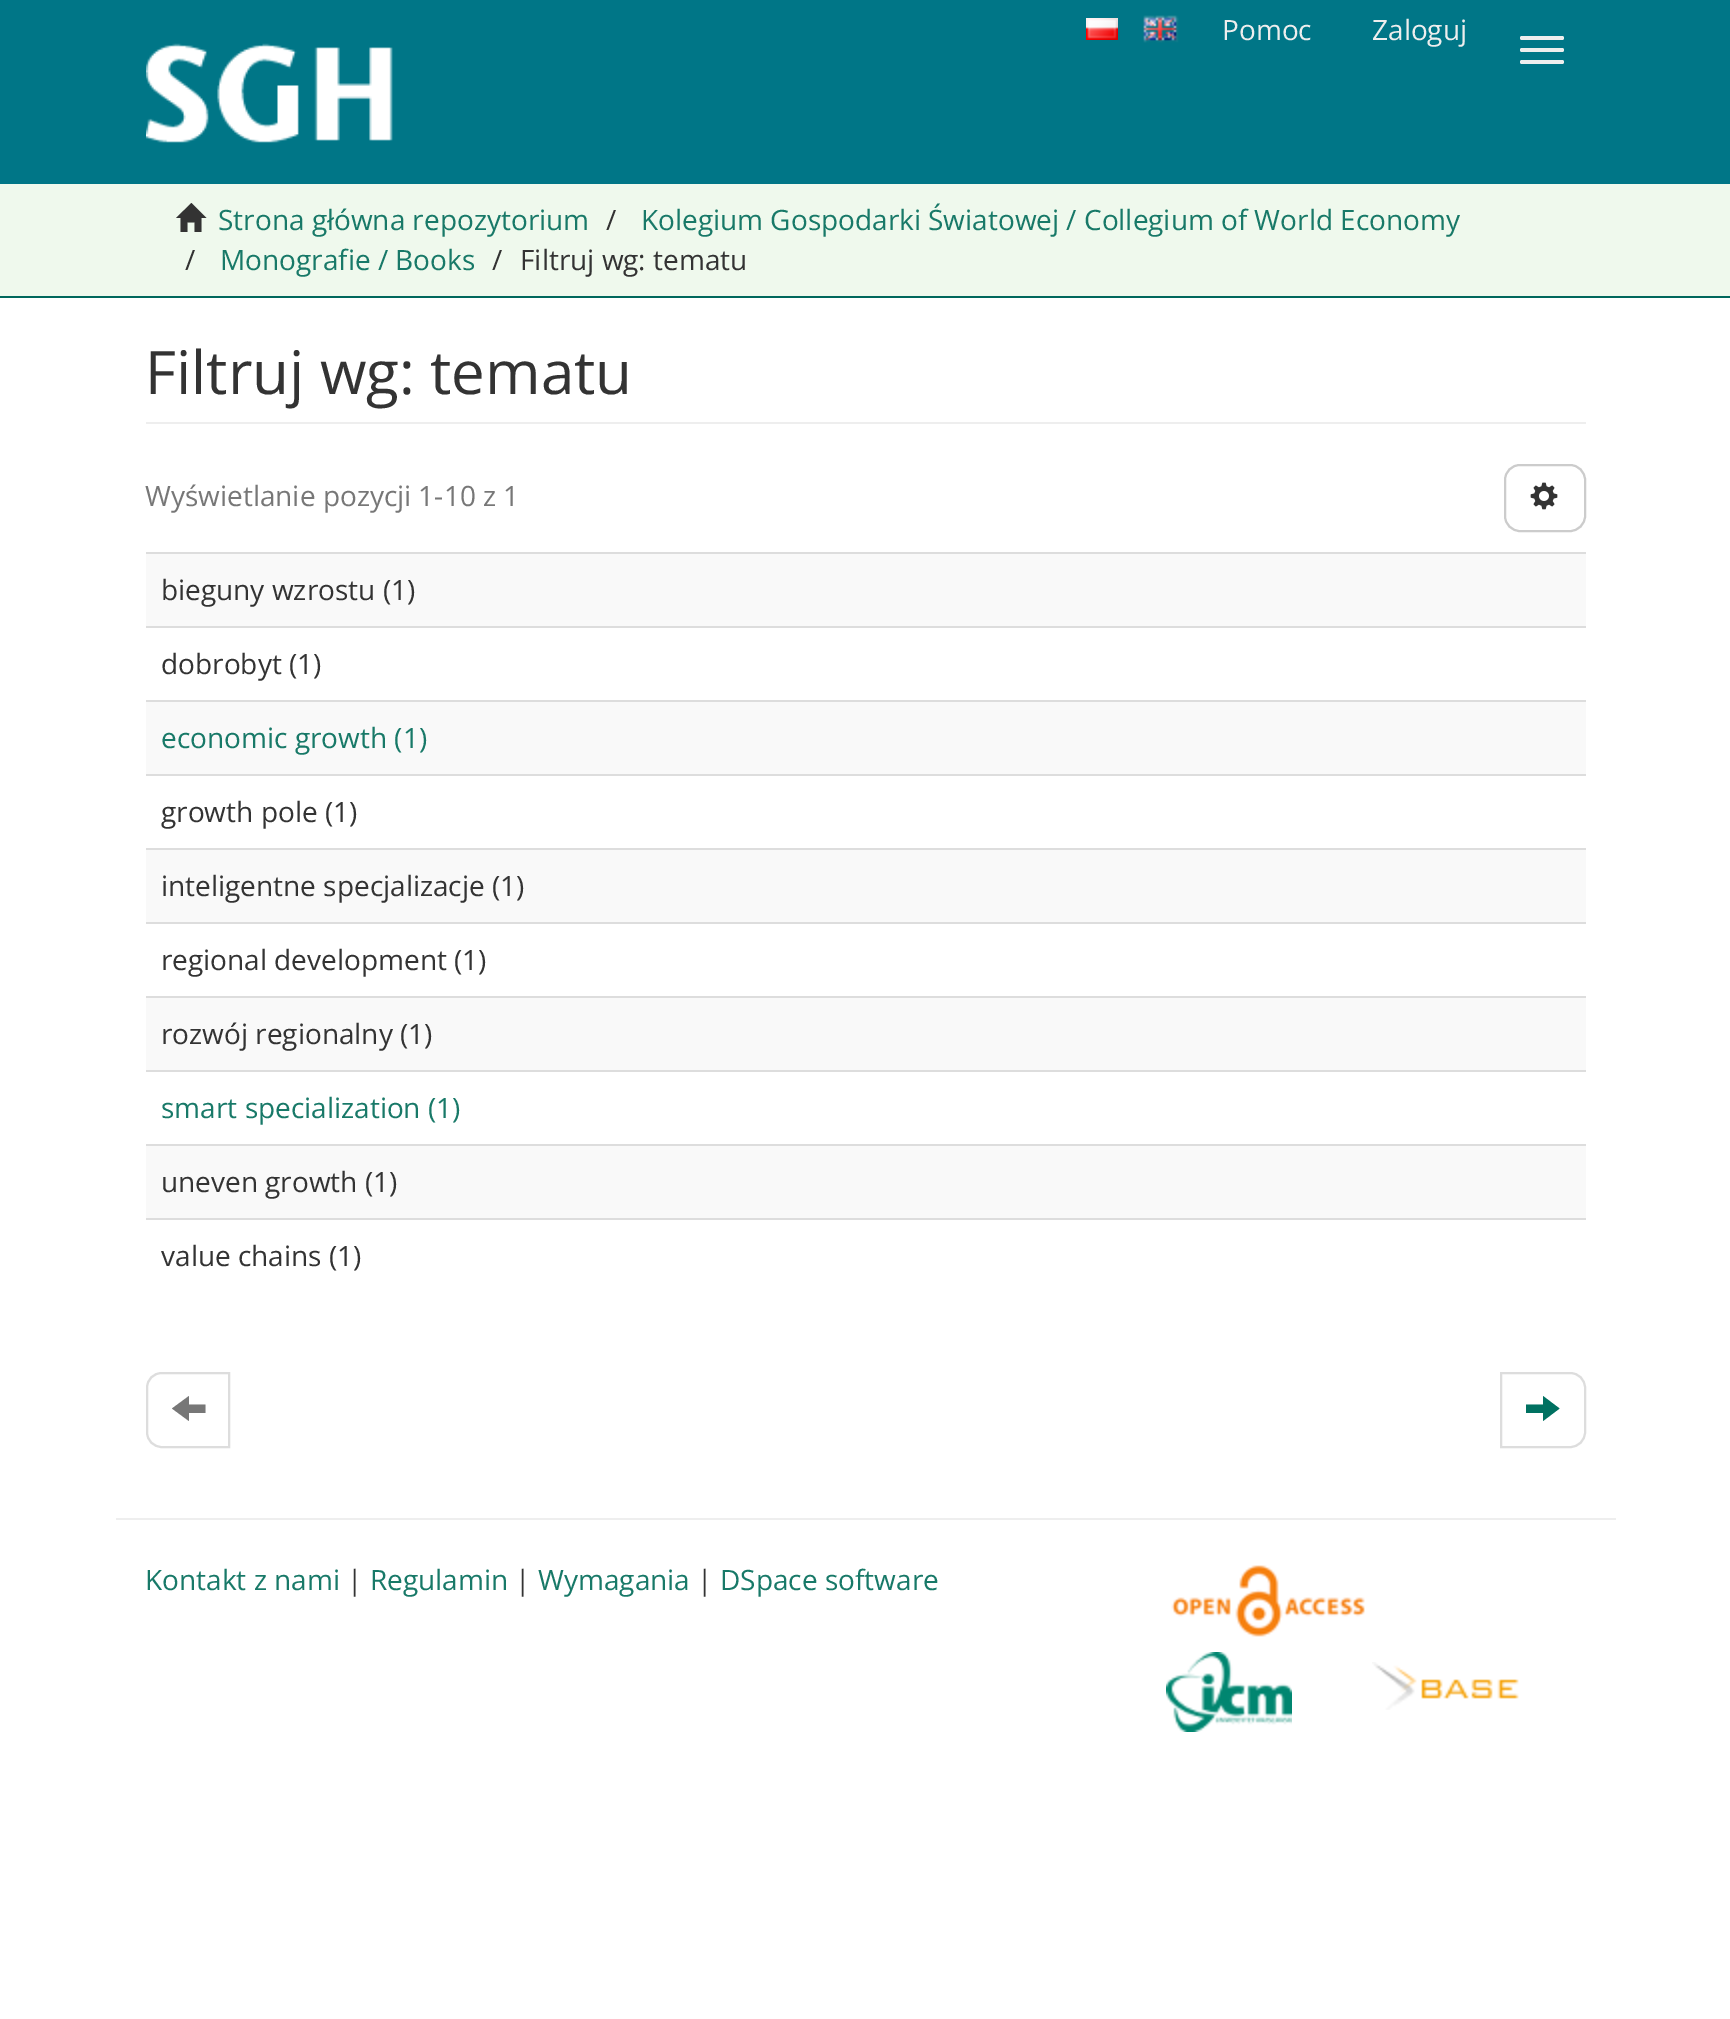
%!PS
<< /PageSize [1730 2019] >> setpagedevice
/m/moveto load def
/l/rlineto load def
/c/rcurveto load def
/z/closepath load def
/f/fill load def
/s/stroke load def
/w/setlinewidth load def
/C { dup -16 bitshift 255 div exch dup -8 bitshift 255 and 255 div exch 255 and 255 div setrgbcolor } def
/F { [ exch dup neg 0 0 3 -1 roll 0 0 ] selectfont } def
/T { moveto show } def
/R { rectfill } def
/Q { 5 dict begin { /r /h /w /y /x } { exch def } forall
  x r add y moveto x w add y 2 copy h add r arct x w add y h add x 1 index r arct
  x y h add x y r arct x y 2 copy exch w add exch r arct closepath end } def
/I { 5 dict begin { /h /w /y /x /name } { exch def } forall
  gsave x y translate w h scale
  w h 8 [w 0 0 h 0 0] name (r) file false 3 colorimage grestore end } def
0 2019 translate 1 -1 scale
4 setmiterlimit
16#FFFFFF C
0 0 1730 2019 R
16#007687 C
0 0 1730 184 R
(1.rgb) 1086 18 32 22 I
(2.rgb) 1143 15 36 28 I
/OpenSans-Regular 28 F
16#EEEEEE C
(Pomoc) 1222 40 T
(Zaloguj) 1372 40 T
1520 36 44 4 2 Q f
1520 48 44 4 2 Q f
1520 60 44 4 2 Q f
(3.rgb) 146 43 247 100 I
16#EFF9ED C
0 184 1730 112 R
16#00685C C
0 296 1730 2 R
16#333333 C
176 218 m 15.5 -15 l 15 15 l -5 0 l 0 14 l -7 0 l 0 -9.5 l -7 0 l 0 9.5 l -7 0 l 0 -14 l z f
16#187968 C
(Strona główna repozytorium) 218 230 T
16#333333 C
(/) 606 230 T
16#187968 C
(Kolegium Gospodarki Światowej / Collegium of World Economy) 641 230 T
16#333333 C
(/) 185 270 T
16#187968 C
(Monografie / Books) 220 270 T
16#333333 C
(/) 492 270 T
(Filtruj wg: tematu) 520 270 T
16#EEEEEE C
146 422 1440 2 R
/OpenSans-Regular 60 F
16#333333 C
(Filtruj wg: tematu) 145 394 T
/OpenSans-Regular 28 F
16#777777 C
(Wyświetlanie pozycji 1-10 z 1) 145 506 T
16#CCCCCC C
2 w
1505 465 80 66 15 Q s
(4.rgb) 1530 482 28 28 I
16#F9F9F9 C
146 554 1440 72 R
16#DDDDDD C
146 552 1440 2 R
16#333333 C
(bieguny wzrostu \(1\)) 161 600 T
16#DDDDDD C
146 626 1440 2 R
16#333333 C
(dobrobyt \(1\)) 161 674 T
16#F9F9F9 C
146 702 1440 72 R
16#DDDDDD C
146 700 1440 2 R
16#187968 C
(economic growth \(1\)) 161 748 T
16#DDDDDD C
146 774 1440 2 R
16#333333 C
(growth pole \(1\)) 161 822 T
16#F9F9F9 C
146 850 1440 72 R
16#DDDDDD C
146 848 1440 2 R
16#333333 C
(inteligentne specjalizacje \(1\)) 161 896 T
16#DDDDDD C
146 922 1440 2 R
16#333333 C
(regional development \(1\)) 161 970 T
16#F9F9F9 C
146 998 1440 72 R
16#DDDDDD C
146 996 1440 2 R
16#333333 C
(rozwój regionalny \(1\)) 161 1044 T
16#DDDDDD C
146 1070 1440 2 R
16#187968 C
(smart specialization \(1\)) 161 1118 T
16#F9F9F9 C
146 1146 1440 72 R
16#DDDDDD C
146 1144 1440 2 R
16#333333 C
(uneven growth \(1\)) 161 1192 T
16#DDDDDD C
146 1218 1440 2 R
16#333333 C
(value chains \(1\)) 161 1266 T
16#DDDDDD C
162 1373 m 67 0 l 0 74 l -67 0 l -8.5 0 -15 -6.5 -15 -15 c 0 -44 l 0 -8.5 6.5 -15 15 -15 c z s
16#777777 C
172 1408.5 m 17 -12.5 l 0 8.5 l 16.5 0 l 0 8.5 l -16.5 0 l 0 8 l z f
16#DDDDDD C
1501 1373 m 69 0 l 8.5 0 15 6.5 15 15 c 0 44 l 0 8.5 -6.5 15 -15 15 c -69 0 l z s
16#007161 C
1526 1413 m 0 -8.5 l 17 0 l 0 -8.5 l 16.5 12.5 l -16.5 12.5 l 0 -8 l z f
16#EEEEEE C
116 1518 1500 2 R
16#187968 C
(Kontakt z nami) 145 1590 T
16#333333 C
(|) 347 1590 T
16#187968 C
(Regulamin) 370 1590 T
16#333333 C
(|) 515 1590 T
16#187968 C
(Wymagania) 538 1590 T
16#333333 C
(|) 697 1590 T
16#187968 C
(DSpace software) 720 1590 T
(5.rgb) 1171 1565 194 72 I
(6.rgb) 1166 1652 126 80 I
(7.rgb) 1372 1662 147 48 I
showpage
